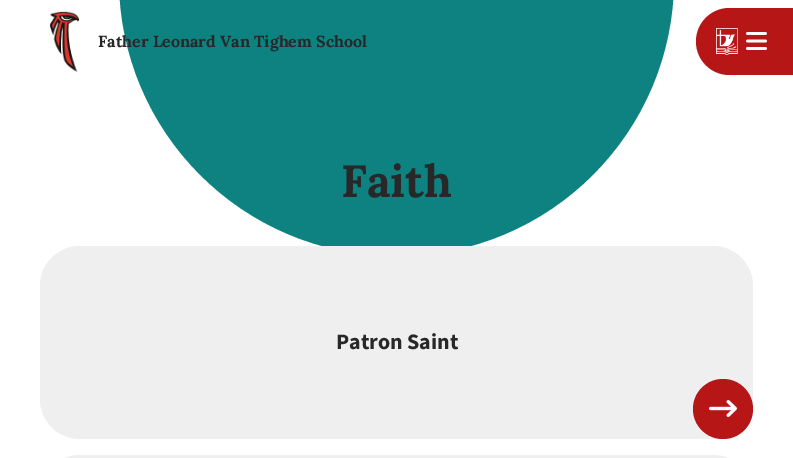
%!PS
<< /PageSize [793 458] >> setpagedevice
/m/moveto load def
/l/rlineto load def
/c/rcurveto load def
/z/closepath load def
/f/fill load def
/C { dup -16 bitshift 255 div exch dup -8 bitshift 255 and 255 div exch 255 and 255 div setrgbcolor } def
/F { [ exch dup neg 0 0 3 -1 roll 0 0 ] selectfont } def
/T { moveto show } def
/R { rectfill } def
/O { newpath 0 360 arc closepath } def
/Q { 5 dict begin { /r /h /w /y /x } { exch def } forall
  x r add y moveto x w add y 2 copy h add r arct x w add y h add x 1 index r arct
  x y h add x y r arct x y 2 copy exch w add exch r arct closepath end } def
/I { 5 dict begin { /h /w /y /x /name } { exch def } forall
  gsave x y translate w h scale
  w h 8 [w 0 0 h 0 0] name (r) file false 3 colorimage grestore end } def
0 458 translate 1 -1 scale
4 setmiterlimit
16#FFFFFF C
0 0 793 458 R
(1.rgb) 49 11 31 61 I
16#0E8181 C
119 -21 m 555 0 l 0 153 -124 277 -277 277 c -1 0 l -153 0 -277 -124 -277 -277 c z f
/Lora-Bold 16 F
16#282828 C
(Father Leonard Van Tighem School) 98 47 T
16#B71616 C
729.5 8 m 63.5 0 l 0 67 l -63.5 0 l -18.5 0 -33.5 -15 -33.5 -33.5 c 0 -18.5 15 -33.5 33.5 -33.5 c z f
(2.rgb) 716 28 22 27 I
(3.rgb) 746 32 21 18 I
/Lora-Bold 45 F
16#282828 C
(Faith) 341 197 T
16#EFEFEF C
40 246 713 193 40 Q f
/SourceSans3-Bold 22 F
16#282828 C
(Patron Saint) 336 349 T
16#B71616 C
723 409 30 O f
(4.rgb) 709 400 28 17 I
16#EFEFEF C
40 455 713 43 40 Q f
showpage
